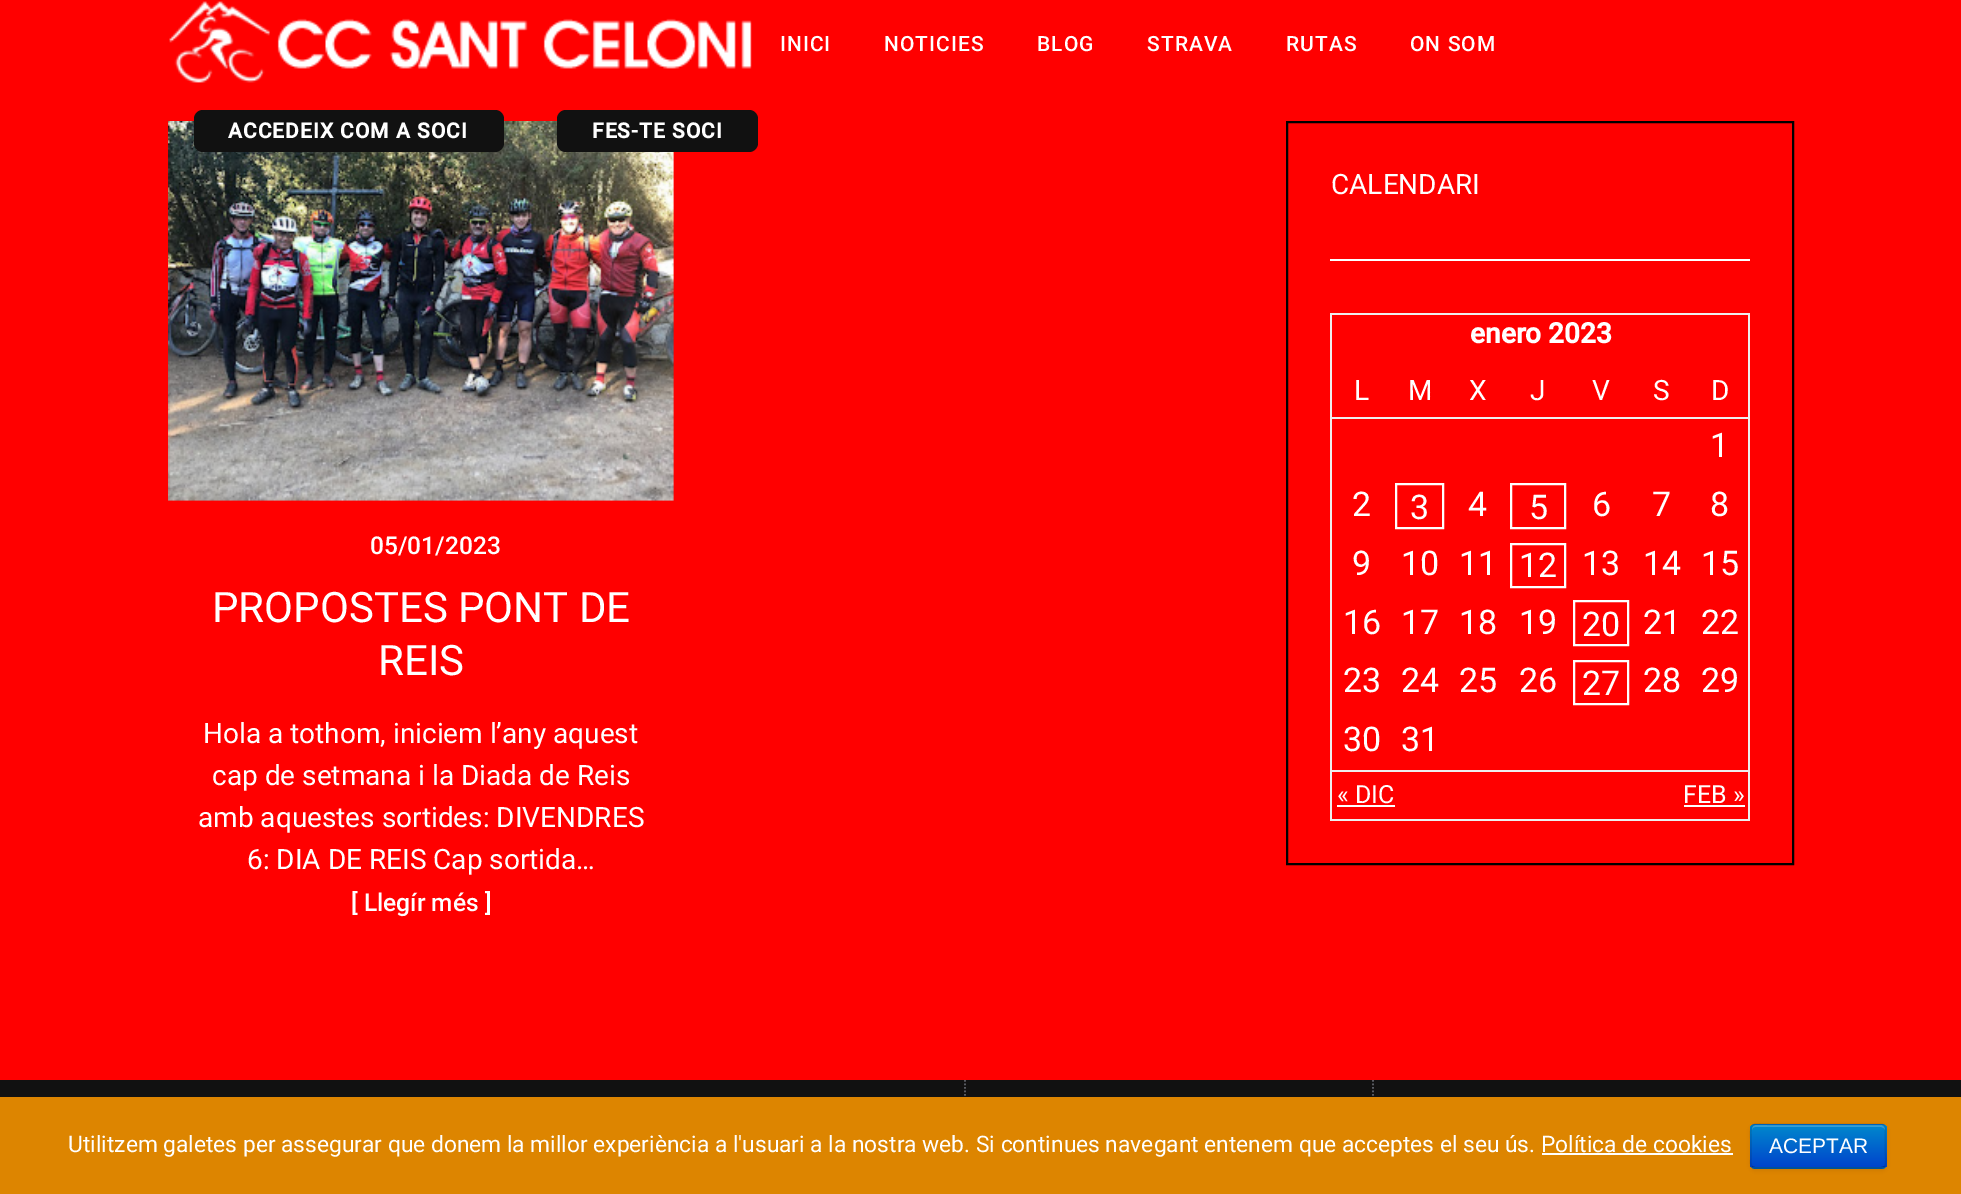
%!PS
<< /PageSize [1961 1194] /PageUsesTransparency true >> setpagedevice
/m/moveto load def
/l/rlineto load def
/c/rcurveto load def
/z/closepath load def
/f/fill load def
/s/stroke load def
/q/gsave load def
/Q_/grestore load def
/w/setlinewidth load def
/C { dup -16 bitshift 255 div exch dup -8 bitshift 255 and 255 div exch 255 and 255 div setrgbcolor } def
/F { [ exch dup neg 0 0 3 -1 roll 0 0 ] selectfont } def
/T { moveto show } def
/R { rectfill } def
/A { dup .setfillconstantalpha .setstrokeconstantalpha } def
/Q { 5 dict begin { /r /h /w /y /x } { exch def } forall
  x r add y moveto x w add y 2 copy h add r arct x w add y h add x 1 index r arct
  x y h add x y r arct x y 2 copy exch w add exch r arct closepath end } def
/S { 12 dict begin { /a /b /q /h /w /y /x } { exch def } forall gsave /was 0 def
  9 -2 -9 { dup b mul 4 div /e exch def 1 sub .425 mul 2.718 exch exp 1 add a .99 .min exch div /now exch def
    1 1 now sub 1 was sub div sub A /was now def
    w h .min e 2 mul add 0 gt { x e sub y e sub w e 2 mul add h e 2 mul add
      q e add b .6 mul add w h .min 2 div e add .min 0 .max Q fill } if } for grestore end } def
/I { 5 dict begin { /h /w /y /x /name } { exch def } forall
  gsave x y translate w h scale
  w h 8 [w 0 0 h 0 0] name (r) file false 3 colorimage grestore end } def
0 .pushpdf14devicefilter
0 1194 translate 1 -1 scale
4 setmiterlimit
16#FF0000 C
0 0 1961 1194 R
(1.rgb) 169 1 583 82 I
/Roboto-Medium 21 F
16#FFFFFF C
780 51 m 1 0 (INICI) ashow
884 51 m 1 0 (NOTICIES) ashow
1037 51 m 1 0 (BLOG) ashow
1147 51 m 1 0 (STRAVA) ashow
1286 51 m 1 0 (RUTAS) ashow
1410 51 m 1 0 (ON SOM) ashow
(2.rgb) 168 121 506 380 I
16#111111 C
194 110 310 42 9 Q f
/Roboto-Bold 21 F
16#FFFFFF C
228 138 m 1 0 (ACCEDEIX COM A SOCI) ashow
16#111111 C
557 110 201 42 9 Q f
16#FFFFFF C
592 138 m 1 0 (FES-TE SOCI) ashow
/Roboto-Medium 24.5 F
(05/01/2023) 370 554 T
/Roboto-Regular 42 F
(PROPOSTES PONT DE) 212 622 T
(REIS) 378 675 T
/Roboto-Regular 28 F
(Hola a tothom, iniciem l’any aquest) 203 743 T
(cap de setmana i la Diada de Reis) 212 785 T
(amb aquestes sortides: DIVENDRES) 198 827 T
(6: DIA DE REIS Cap sortida…) 247 869 T
/Roboto-Medium 24.5 F
([ Llegír més ]) 351 911 T
16#000000 C
2 w
1287 122 506 742 rectstroke
16#FFFFFF C
1330 259 420 2 R
/Roboto-Regular 28 F
(CALENDARI) 1331 194 T
16#EEEEEE C
1330 313 420 2 R
1748 313 2 508 R
1330 819 420 2 R
1330 313 2 508 R
/Roboto-Bold 28 F
16#FFFFFF C
(enero 2023) 1470 343 T
16#EEEEEE C
1330 417 420 2 R
/Roboto-Regular 28 F
16#FFFFFF C
(L) 1354 400 T
(M) 1408 400 T
(X) 1469 400 T
(J) 1530 400 T
(V) 1592 400 T
(S) 1653 400 T
(D) 1711 400 T
16#EEEEEE C
1330 770 420 2 R
/Roboto-Regular 34 F
16#FFFFFF C
(1) 1710 457 T
(2) 1352 516 T
1396 484 47 44 rectstroke
(3) 1410 519 T
(4) 1468 516 T
1511 484 54 44 rectstroke
(5) 1529 519 T
(6) 1592 516 T
(7) 1652 516 T
(8) 1710 516 T
(9) 1352 575 T
(10) 1401 575 T
(11) 1459 575 T
1511 544 54 43 rectstroke
(12) 1519 577 T
(13) 1582 575 T
(14) 1643 575 T
(15) 1701 575 T
(16) 1343 634 T
(17) 1401 634 T
(18) 1459 634 T
(19) 1519 634 T
1574 601 54 44 rectstroke
(20) 1582 636 T
(21) 1643 634 T
(22) 1701 634 T
(23) 1343 692 T
(24) 1401 692 T
(25) 1459 692 T
(26) 1519 692 T
1574 661 54 43 rectstroke
(27) 1582 695 T
(28) 1643 692 T
(29) 1701 692 T
(30) 1343 751 T
(31) 1401 751 T
/Roboto-Regular 25 F
(« DIC) 1337 803 T
1337 805 58 2 R
(FEB ») 1683 803 T
1684 805 61 2 R
16#111111 C
0 1080 1961 17 R
16#585B61 C
1.8 w
[1.75 1.75] 0 setdash
965 1080 m 0 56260.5 l s
1373 1080 m 0 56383 l s
16#DD8500 C
0 1097 1961 97 R
/Roboto-Regular 22.75 F
16#FFFFFF C
(Utilitzem galetes per assegurar que donem la millor experiència a l'usuari a la nostra web. Si continues navegant entenem que acceptes el seu ús. Política de cookies) 68 1152 T
1542 1153 191 2 R
16#000000 C
1750 1125 137 46 5 2 .05 S
16#006DCC C
1750 1124 137 45 5 Q f
q
1750 1124 137 45 5 Q clip newpath
q 1750 1125 m 137 0 l 0 42 l -137 0 l z clip newpath
<< /ShadingType 2 /ColorSpace /DeviceRGB /Coords [1818 1125 1818 1167] /Extend [true true] /Function << /FunctionType 2 /Domain [0 1] /C0 [0 .533 .8] /C1 [0 .267 .8] /N 1 >> >> shfill Q_
Q_
0.2 A
16#FFFFFF C
1755 1127 m 126 0 l 2 0 4 2 4 3 c 0 -1 l 0 -2 -2 -4 -4 -4 c -125 0 l -2 0 -4 2 -4 4 c 0 1 l 0 -1 1 -3 3 -3 c z f
0.25 A
16#000000 C
[] 0 setdash
1884.5 1167 m -3.5 1 l -126 0 l -3 -1 l s
0.1 A
1752 1167 m -2 -2.5 -1 -6.5 -1 -9 c 0 -12 l 0 -26.5 -4 -21.5 25 -21.5 c 105 0 l 5.5 0 4.5 6.5 4.5 10 c 0 17.5 l 0 3 1.5 12 -1 15 c s
/LiberationSans-Regular 21 F
1 A
16#FFFFFF C
(ACEPTAR) 1769 1153 T
.poppdf14devicefilter showpage
